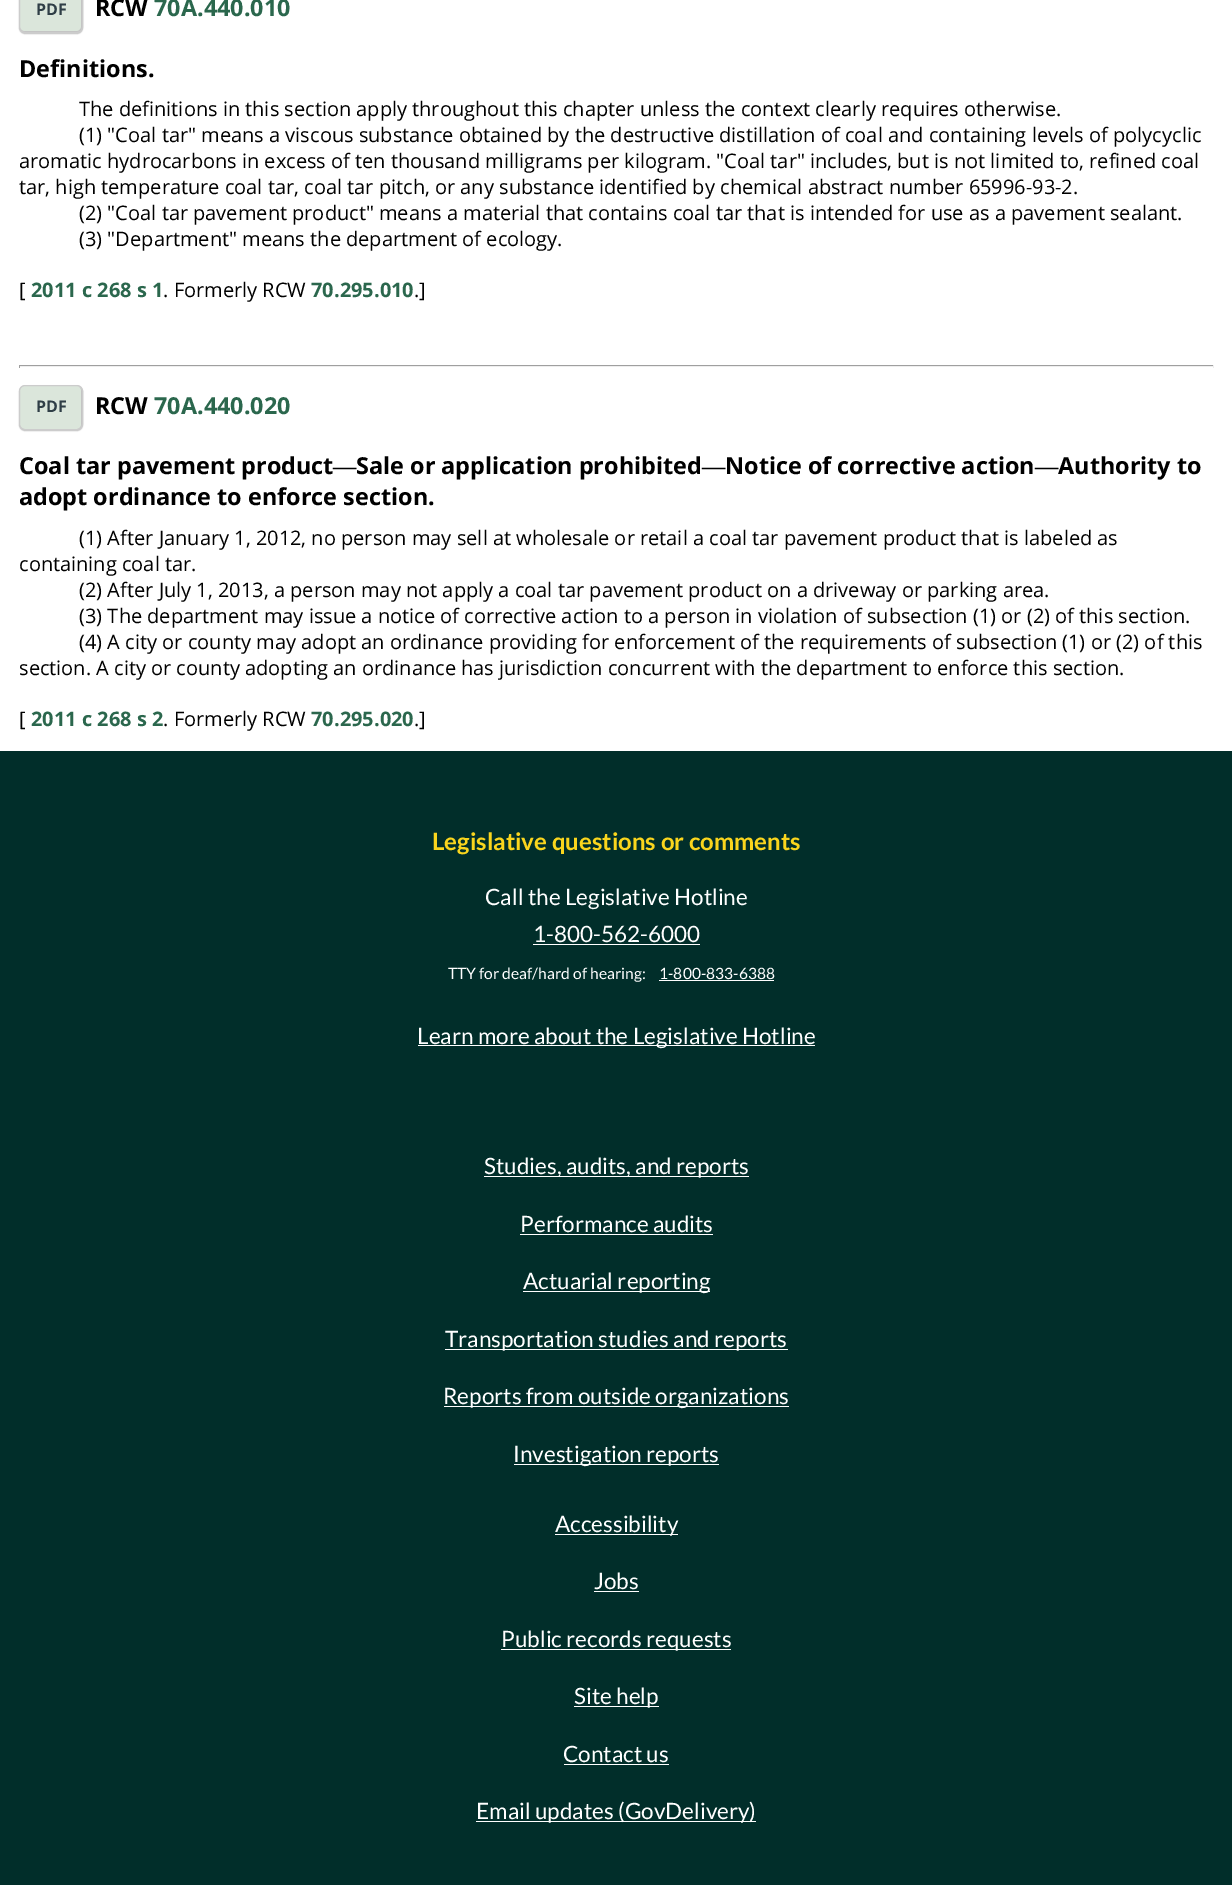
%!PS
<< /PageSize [1232 1885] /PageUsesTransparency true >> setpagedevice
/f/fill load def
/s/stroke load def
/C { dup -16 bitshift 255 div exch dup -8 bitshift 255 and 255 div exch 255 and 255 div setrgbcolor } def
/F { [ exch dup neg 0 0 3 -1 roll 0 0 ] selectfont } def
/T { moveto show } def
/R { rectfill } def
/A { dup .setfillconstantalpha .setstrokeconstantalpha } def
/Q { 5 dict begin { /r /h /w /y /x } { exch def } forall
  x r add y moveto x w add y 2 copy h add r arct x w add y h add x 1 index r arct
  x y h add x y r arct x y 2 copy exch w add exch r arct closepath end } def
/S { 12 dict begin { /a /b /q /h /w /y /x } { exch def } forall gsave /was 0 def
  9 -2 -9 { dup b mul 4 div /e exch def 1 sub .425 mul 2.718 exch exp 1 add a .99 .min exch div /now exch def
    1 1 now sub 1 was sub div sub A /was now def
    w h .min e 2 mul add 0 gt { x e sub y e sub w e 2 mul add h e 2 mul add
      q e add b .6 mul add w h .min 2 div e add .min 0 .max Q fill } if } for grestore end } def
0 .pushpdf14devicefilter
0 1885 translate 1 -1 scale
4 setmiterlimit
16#FFFFFF C
0 0 1232 1885 R
16#333333 C
19 -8 64 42 6 .5 .3 S
16#DBE6DB C
20 -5 61 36 5 Q f
16#CCCCCC C
19.5 -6.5 63 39 5.5 Q s
/OpenSans-Bold 16 F
16#2F3E46 C
(PDF) 36 15 T
/OpenSans-Bold 23.4 F
16#000000 C
(RCW) 95 16 T
16#2B674D C
(70A.440.010) 154 16 T
16#000000 C
(Definitions.) 19 77 T
/OpenSans-Regular 20 F
(The definitions in this section apply throughout this chapter unless the context clearly requires otherwise.) 79 116 T
(\(1\) "Coal tar" means a viscous substance obtained by the destructive distillation of coal and containing levels of polycyclic) 79 142 T
(aromatic hydrocarbons in excess of ten thousand milligrams per kilogram. "Coal tar" includes, but is not limited to, refined coal) 19 168 T
(tar, high temperature coal tar, coal tar pitch, or any substance identified by chemical abstract number 65996-93-2.) 19 194 T
(\(2\) "Coal tar pavement product" means a material that contains coal tar that is intended for use as a pavement sealant.) 79 220 T
(\(3\) "Department" means the department of ecology.) 79 246 T
([) 19 297 T
/OpenSans-Bold 20 F
16#2B674D C
(2011 c 268 s 1) 31 297 T
/OpenSans-Regular 20 F
16#000000 C
(. Formerly RCW) 163 297 T
/OpenSans-Bold 20 F
16#2B674D C
(70.295.010) 311 297 T
/OpenSans-Regular 20 F
16#000000 C
(.]) 414 297 T
16#9F9F9F C
19 365 1195 1 R
16#EEEEEE C
1213 365 1 3 R
19 366 1195 1 R
16#9F9F9F C
19 365 1 3 R
16#333333 C
19 386 64 45 6 .5 .3 S
16#DBE6DB C
20 386 61 43 5 Q f
16#CCCCCC C
19.5 385.5 63 44 5.5 Q s
/OpenSans-Bold 16 F
16#2F3E46 C
(PDF) 36 412 T
/OpenSans-Bold 23.4 F
16#000000 C
(RCW) 95 414 T
16#2B674D C
(70A.440.020) 154 414 T
16#000000 C
(Coal tar pavement product) 19 474 T
/LiberationSerif-Bold 23.4 F
(—) 333 474 T
/OpenSans-Bold 23.4 F
(Sale or application prohibited) 356 474 T
/LiberationSerif-Bold 23.4 F
(—) 702 474 T
/OpenSans-Bold 23.4 F
(Notice of corrective action) 725 474 T
/LiberationSerif-Bold 23.4 F
(—) 1035 474 T
/OpenSans-Bold 23.4 F
(Authority to) 1058 474 T
(adopt ordinance to enforce section.) 19 505 T
/OpenSans-Regular 20 F
(\(1\) After January 1, 2012, no person may sell at wholesale or retail a coal tar pavement product that is labeled as) 79 545 T
(containing coal tar.) 19 571 T
(\(2\) After July 1, 2013, a person may not apply a coal tar pavement product on a driveway or parking area.) 79 597 T
(\(3\) The department may issue a notice of corrective action to a person in violation of subsection \(1\) or \(2\) of this section.) 79 623 T
(\(4\) A city or county may adopt an ordinance providing for enforcement of the requirements of subsection \(1\) or \(2\) of this) 79 649 T
(section. A city or county adopting an ordinance has jurisdiction concurrent with the department to enforce this section.) 19 675 T
([) 19 726 T
/OpenSans-Bold 20 F
16#2B674D C
(2011 c 268 s 2) 31 726 T
/OpenSans-Regular 20 F
16#000000 C
(. Formerly RCW) 163 726 T
/OpenSans-Bold 20 F
16#2B674D C
(70.295.020) 311 726 T
/OpenSans-Regular 20 F
16#000000 C
(.]) 414 726 T
16#012E2A C
0 751 1232 1134 R
/Lato-Bold 24 F
16#FAD51D C
(Legislative questions or comments) 432 850 T
/Lato-Regular 22.5 F
16#FFFFFF C
(Call the Legislative Hotline) 485 905 T
(1-800-562-6000) 533 942 T
533 944 167 1 R
/Lato-Regular 15.6 F
(TTY for deaf/hard of hearing:) 448 979 T
(1-800-833-6388) 659 979 T
659 980 115 1 R
418 1045 397 1 R
/Lato-Regular 22.5 F
(Learn more about the Legislative Hotline) 417 1044 T
484 1176 265 1 R
(Studies, audits, and reports) 484 1174 T
(Performance audits) 520 1232 T
520 1234 193 1 R
523 1291 187 1 R
(Actuarial reporting) 523 1289 T
445 1349 343 1 R
(Transportation studies and reports) 445 1347 T
444 1406 345 1 R
(Reports from outside organizations) 443 1404 T
514 1464 205 1 R
(Investigation reports) 513 1462 T
555 1534 123 1 R
(Accessibility) 555 1532 T
(Jobs) 594 1589 T
594 1591 45 1 R
501 1649 230 1 R
(Public records requests) 501 1647 T
574 1706 85 1 R
(Site help) 574 1704 T
(Contact us) 563 1762 T
564 1764 105 1 R
476 1821 280 1 R
(Email updates \(GovDelivery\)) 476 1819 T
.poppdf14devicefilter showpage
